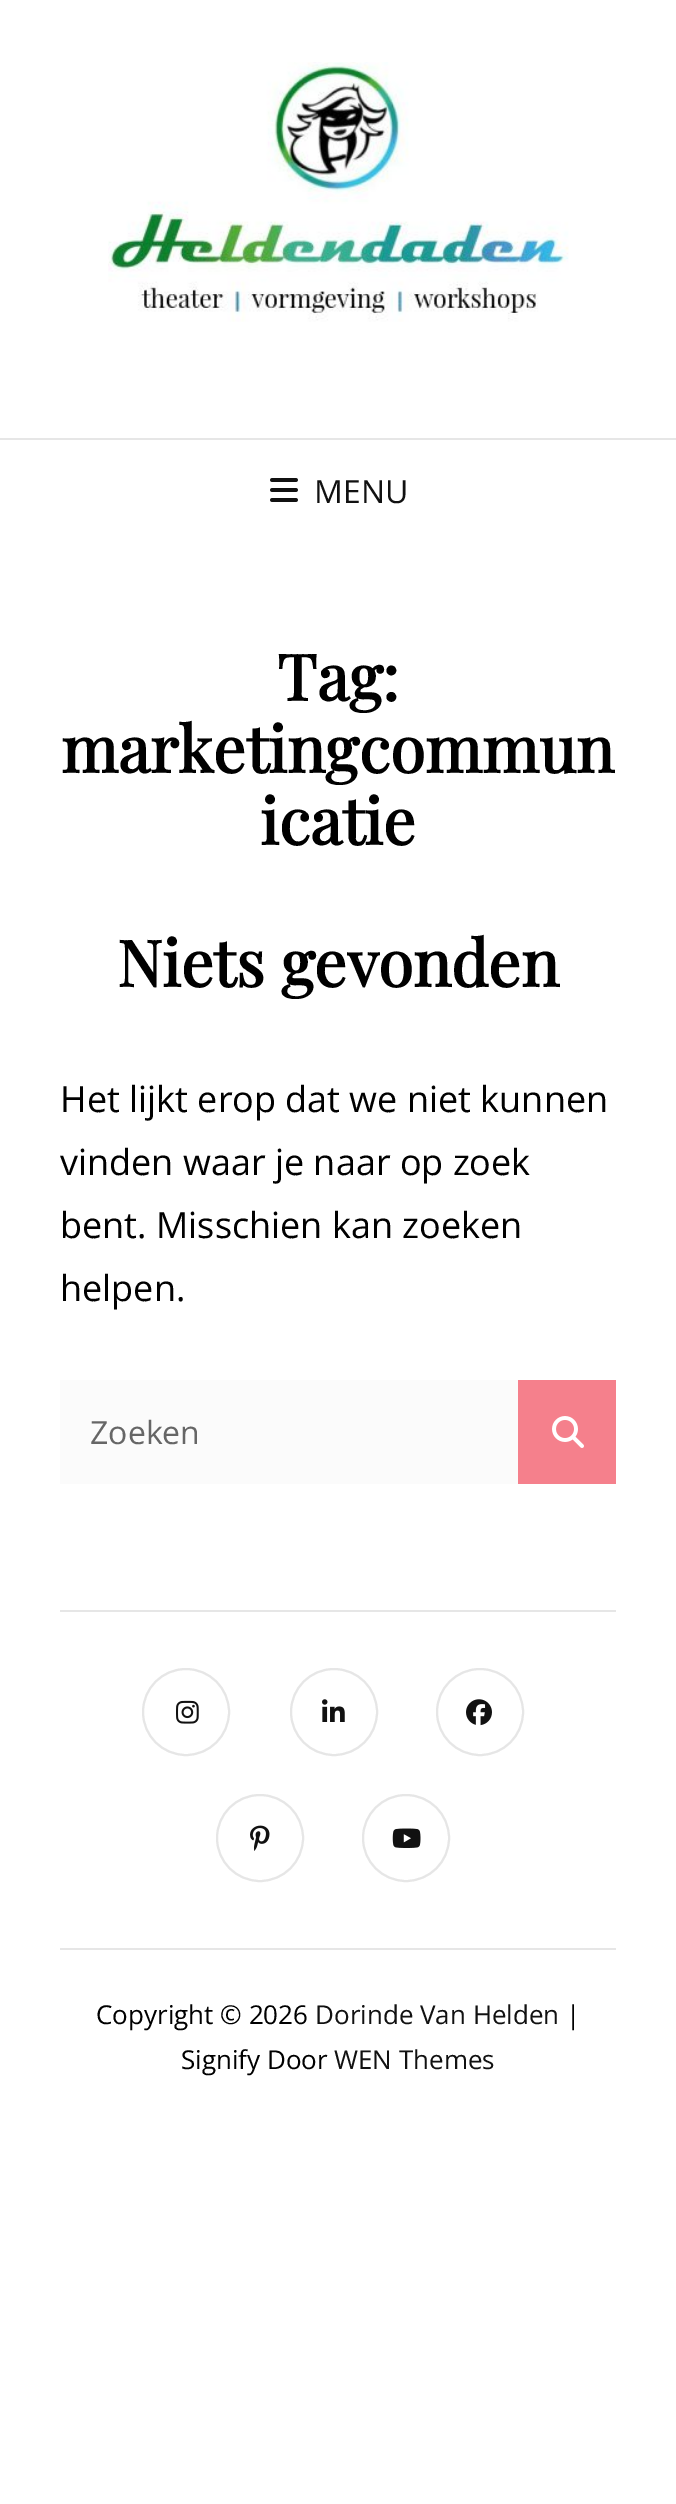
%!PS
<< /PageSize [676 2504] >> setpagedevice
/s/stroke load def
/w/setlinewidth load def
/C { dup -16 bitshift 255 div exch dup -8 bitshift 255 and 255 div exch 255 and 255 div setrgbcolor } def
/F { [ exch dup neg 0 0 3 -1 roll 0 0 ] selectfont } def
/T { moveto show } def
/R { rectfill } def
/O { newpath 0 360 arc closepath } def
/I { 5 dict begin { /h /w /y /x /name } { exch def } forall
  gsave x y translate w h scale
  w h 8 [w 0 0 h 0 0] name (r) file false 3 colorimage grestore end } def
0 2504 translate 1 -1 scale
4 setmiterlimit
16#FFFFFF C
0 0 676 2504 R
(1.rgb) 108 62 461 260 I
16#E6E6E6 C
0 438 676 2 R
(2.rgb) 270 478 28 24 I
/OpenSans-Regular 32 F
16#111111 C
(MENU) 314 503 T
/PlayfairDisplay-Bold 64 F
16#000000 C
(Tag:) 277 701 T
(marketingcommun) 61 773 T
(icatie) 260 845 T
(Niets gevonden) 117 987 T
/OpenSans-Regular 36 F
(Het lijkt erop dat we niet kunnen) 60 1112 T
(vinden waar je naar op zoek) 60 1175 T
(bent. Misschien kan zoeken) 60 1238 T
(helpen.) 60 1301 T
16#FBFBFB C
60 1380 458 104 R
/OpenSans-Regular 32 F
16#666666 C
(Zoeken) 90 1444 T
16#F5808C C
518 1380 98 104 R
(3.rgb) 552 1416 32 32 I
16#E6E6E6 C
60 1610 556 2 R
60 1948 556 2 R
2 w
186 1712 43 O s
(4.rgb) 176 1700 23 24 I
334 1712 43 O s
(5.rgb) 322 1699 23 23 I
480 1712 43 O s
(6.rgb) 466 1699 26 27 I
260 1838 43 O s
(7.rgb) 250 1825 20 26 I
406 1838 43 O s
(8.rgb) 392 1828 29 20 I
/OpenSans-Regular 26 F
16#000000 C
(Copyright © 2026) 96 2024 T
16#111111 C
(Dorinde Van Helden) 315 2024 T
16#000000 C
(|) 566 2024 T
(Signify Door) 181 2069 T
16#111111 C
(WEN Themes) 334 2069 T
showpage
